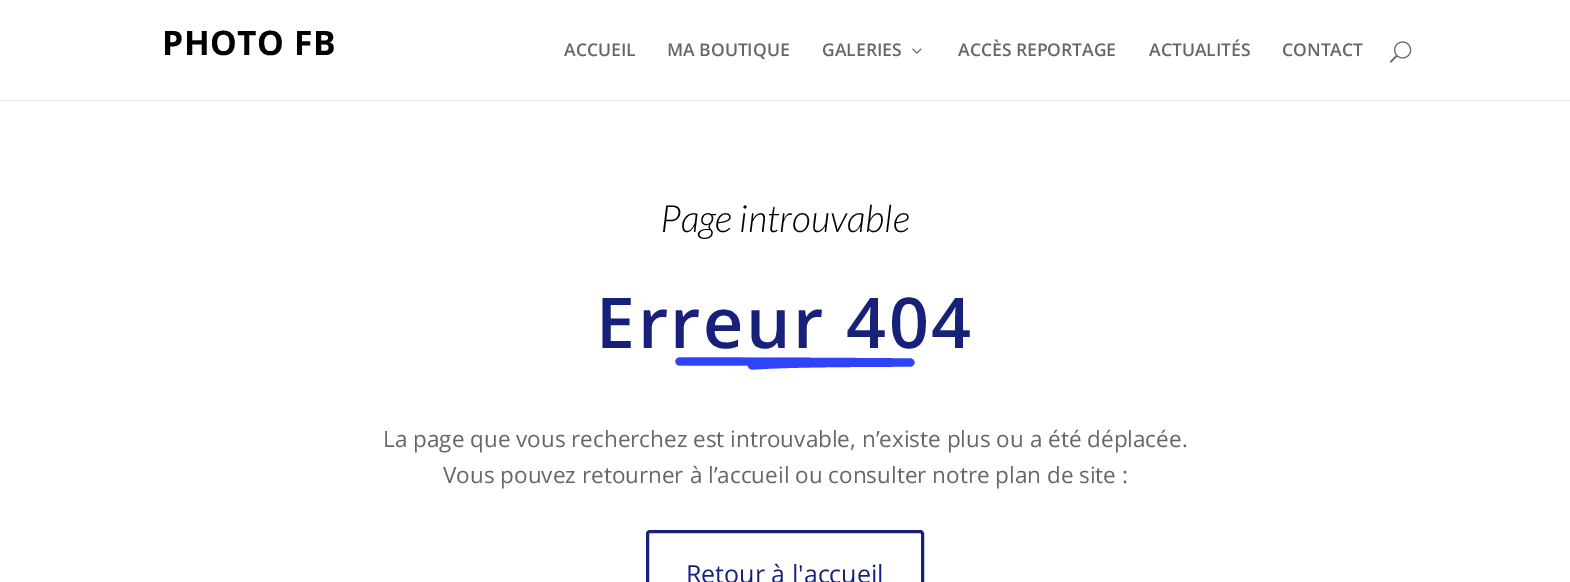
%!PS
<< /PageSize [1570 582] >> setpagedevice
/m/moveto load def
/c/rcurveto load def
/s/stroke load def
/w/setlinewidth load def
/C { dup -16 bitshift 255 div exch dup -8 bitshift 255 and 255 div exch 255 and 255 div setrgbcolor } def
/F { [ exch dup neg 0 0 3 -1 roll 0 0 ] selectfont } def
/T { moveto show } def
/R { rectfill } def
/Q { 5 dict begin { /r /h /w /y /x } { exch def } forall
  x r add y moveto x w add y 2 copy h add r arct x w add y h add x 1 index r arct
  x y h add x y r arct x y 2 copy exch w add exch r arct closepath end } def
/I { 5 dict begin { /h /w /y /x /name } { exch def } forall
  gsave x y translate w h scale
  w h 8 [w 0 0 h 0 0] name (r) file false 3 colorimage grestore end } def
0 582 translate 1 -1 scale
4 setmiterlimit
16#FFFFFF C
0 0 1570 582 R
16#E6E6E6 C
0 100 1570 1 R
/OpenSans-Bold 33.75 F
16#000000 C
162 55 m .5 0 (PHOTO FB) ashow
/OpenSans-SemiBold 17.5 F
16#666666 C
(ACCUEIL) 564 56 T
(MA BOUTIQUE) 667 56 T
(GALERIES) 822 56 T
(1.rgb) 912 48 10 6 I
(ACCÈS REPORTAGE) 958 56 T
(ACTUALITÉS) 1149 56 T
(CONTACT) 1282 56 T
(2.rgb) 1390 41 22 22 I
/Lato-LightItalic 37.5 F
16#000000 C
(Page introuvable) 660 232 T
/OpenSans-SemiBold 70 F
16#17217A C
596 348 m 2.5 0 (Erreur 404) ashow
16#2F44FA C
8.2 w
1 setlinecap
1 setlinejoin
679.5 361.5 m 72 0 176.5 .5 231 1 c -45 .5 -110.5 0 -158.5 3 c s
/OpenSans-Regular 22.5 F
16#666666 C
(La page que vous recherchez est introuvable, n’existe plus ou a été déplacée.) 383 447 T
(Vous pouvez retourner à l’accueil ou consulter notre plan de site :) 443 483 T
16#17217A C
3 w
0 setlinecap
0 setlinejoin
647.5 531.5 275 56 2.5 Q s
/OpenSans-Regular 25 F
(Retour à l'accueil) 686 583 T
showpage
